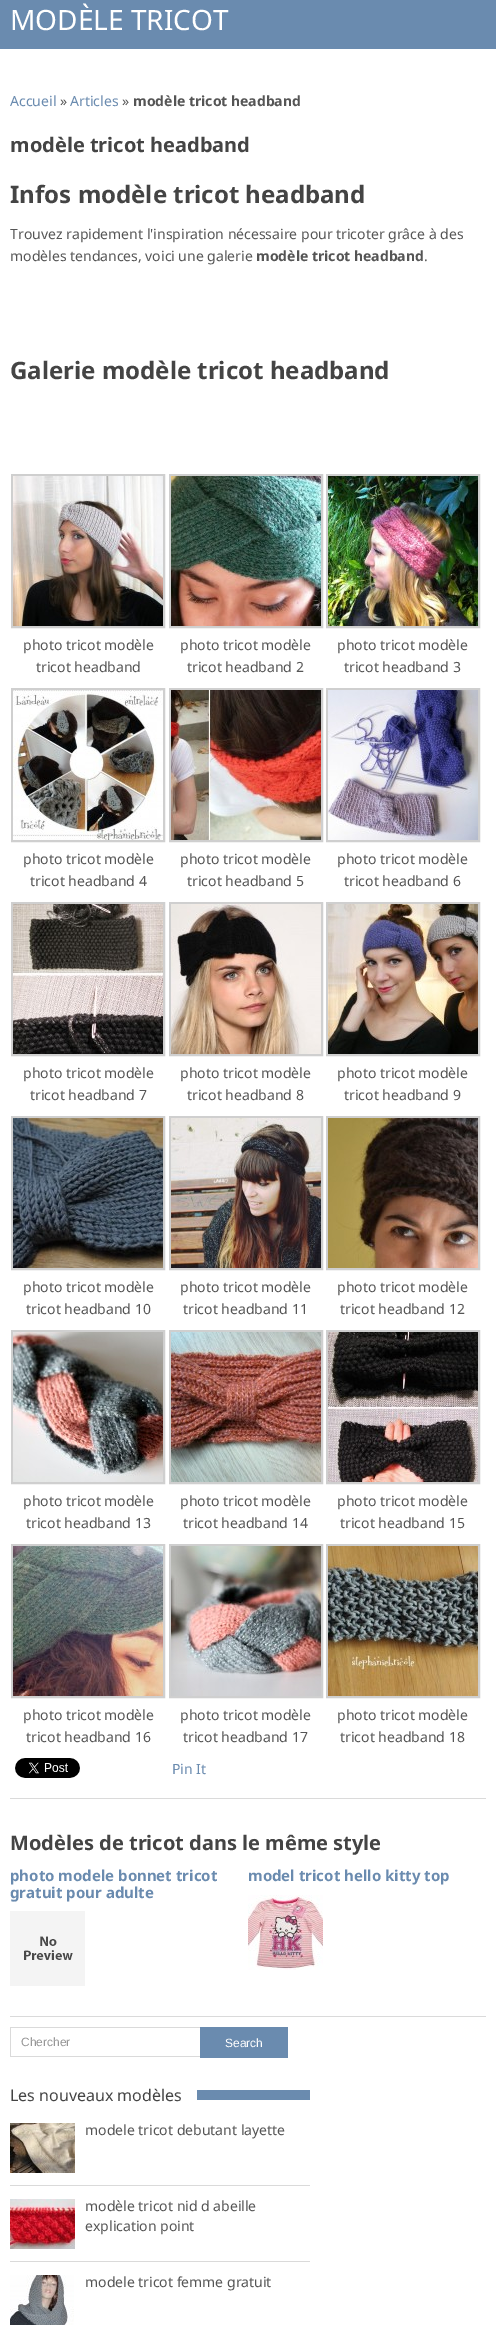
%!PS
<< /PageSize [496 2332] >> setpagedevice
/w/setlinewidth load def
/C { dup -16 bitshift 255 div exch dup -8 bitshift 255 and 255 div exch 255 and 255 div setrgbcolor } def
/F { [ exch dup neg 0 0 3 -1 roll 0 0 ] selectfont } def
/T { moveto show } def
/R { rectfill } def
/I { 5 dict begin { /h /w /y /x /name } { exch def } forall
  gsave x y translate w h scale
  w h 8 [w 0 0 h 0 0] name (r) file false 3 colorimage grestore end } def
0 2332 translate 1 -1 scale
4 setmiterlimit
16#FFFFFF C
0 0 496 2332 R
16#6A8BAF C
0 0 496 49 R
/NotoSans-Regular 28 F
16#FFFFFF C
(MODÈLE TRICOT) 10 30 T
16#DADADA C
10 1798 476 1 R
/NotoSans-Regular 14 F
16#6A8BAF C
(Accueil) 10 106 T
16#555555 C
(») 60 106 T
16#6A8BAF C
(Articles) 70 106 T
16#555555 C
(») 122 106 T
/NotoSans-Bold 14 F
(modèle tricot headband) 133 106 T
/NotoSans-Bold 20 F
16#444444 C
(modèle tricot headband) 10 152 T
/NotoSans-Bold 24 F
(Infos modèle tricot headband) 10 203 T
/NotoSans-Regular 14 F
16#555555 C
(Trouvez rapidement l'inspiration nécessaire pour tricoter grâce à des) 10 239 T
(modèles tendances, voici une galerie) 10 261 T
/NotoSans-Bold 14 F
(modèle tricot headband) 256 261 T
/NotoSans-Regular 14 F
(.) 424 261 T
/NotoSans-Bold 24 F
16#444444 C
(Galerie modèle tricot headband) 10 379 T
16#CFCFCF C
2 w
12 475 152 152 rectstroke
(1.rgb) 13 476 150 150 I
/NotoSans-Regular 14 F
16#555555 C
(photo tricot modèle) 23 650 T
(tricot headband) 36 672 T
16#CFCFCF C
170 475 152 152 rectstroke
(2.rgb) 171 476 150 150 I
16#555555 C
(photo tricot modèle) 180 650 T
(tricot headband 2) 187 672 T
16#CFCFCF C
327 475 152 152 rectstroke
(3.rgb) 328 476 150 150 I
16#555555 C
(photo tricot modèle) 337 650 T
(tricot headband 3) 344 672 T
16#CFCFCF C
12 689 152 152 rectstroke
(4.rgb) 13 690 150 150 I
16#555555 C
(photo tricot modèle) 23 864 T
(tricot headband 4) 30 886 T
16#CFCFCF C
170 689 152 152 rectstroke
(5.rgb) 171 690 150 150 I
16#555555 C
(photo tricot modèle) 180 864 T
(tricot headband 5) 187 886 T
16#CFCFCF C
327 689 152 152 rectstroke
(6.rgb) 328 690 150 150 I
16#555555 C
(photo tricot modèle) 337 864 T
(tricot headband 6) 344 886 T
16#CFCFCF C
12 903 152 152 rectstroke
(7.rgb) 13 904 150 150 I
16#555555 C
(photo tricot modèle) 23 1078 T
(tricot headband 7) 30 1100 T
16#CFCFCF C
170 903 152 152 rectstroke
(8.rgb) 171 904 150 150 I
16#555555 C
(photo tricot modèle) 180 1078 T
(tricot headband 8) 187 1100 T
16#CFCFCF C
327 903 152 152 rectstroke
(9.rgb) 328 904 150 150 I
16#555555 C
(photo tricot modèle) 337 1078 T
(tricot headband 9) 344 1100 T
16#CFCFCF C
12 1117 152 152 rectstroke
(10.rgb) 13 1118 150 150 I
16#555555 C
(photo tricot modèle) 23 1292 T
(tricot headband 10) 26 1314 T
16#CFCFCF C
170 1117 152 152 rectstroke
(11.rgb) 171 1118 150 150 I
16#555555 C
(photo tricot modèle) 180 1292 T
(tricot headband 11) 183 1314 T
16#CFCFCF C
327 1117 152 152 rectstroke
(12.rgb) 328 1118 150 150 I
16#555555 C
(photo tricot modèle) 337 1292 T
(tricot headband 12) 340 1314 T
16#CFCFCF C
12 1331 152 152 rectstroke
(13.rgb) 13 1332 150 150 I
16#555555 C
(photo tricot modèle) 23 1506 T
(tricot headband 13) 26 1528 T
16#CFCFCF C
170 1331 152 152 rectstroke
(14.rgb) 171 1332 150 150 I
16#555555 C
(photo tricot modèle) 180 1506 T
(tricot headband 14) 183 1528 T
16#CFCFCF C
327 1331 152 152 rectstroke
(15.rgb) 328 1332 150 150 I
16#555555 C
(photo tricot modèle) 337 1506 T
(tricot headband 15) 340 1528 T
16#CFCFCF C
12 1545 152 152 rectstroke
(16.rgb) 13 1546 150 150 I
16#555555 C
(photo tricot modèle) 23 1720 T
(tricot headband 16) 26 1742 T
16#CFCFCF C
170 1545 152 152 rectstroke
(17.rgb) 171 1546 150 150 I
16#555555 C
(photo tricot modèle) 180 1720 T
(tricot headband 17) 183 1742 T
16#CFCFCF C
327 1545 152 152 rectstroke
(18.rgb) 328 1546 150 150 I
16#555555 C
(photo tricot modèle) 337 1720 T
(tricot headband 18) 340 1742 T
(19.rgb) 15 1758 65 20 I
16#6A8BAF C
(Pin It) 172 1774 T
16#DADADA C
10 2016 476 1 R
/NotoSans-Bold 20 F
16#444444 C
(Modèles de tricot dans le même style) 10 1850 T
/NotoSans-Bold 15 F
16#6A8BAF C
(photo modele bonnet tricot) 10 1881 T
(gratuit pour adulte) 10 1898 T
(20.rgb) 10 1911 75 75 I
(model tricot hello kitty top) 248 1881 T
(21.rgb) 248 1895 75 75 I
16#DADADA C
10 2027 190 1 R
10 2056 190 1 R
10 2027 1 30 R
/LiberationSans-Regular 12 F
16#969696 C
(Chercher) 21 2046 T
16#6A8BAF C
200 2027 88 31 R
16#FFFFFF C
(Search) 225 2047 T
16#6A8BAF C
197 2090 113 10 R
/NotoSans-Regular 16 F
16#444444 C
(Les nouveaux modèles) 10 2101 T
16#DADADA C
10 2185 300 1 R
(22.rgb) 10 2123 65 50 I
/NotoSans-Regular 14 F
16#555555 C
(modele tricot debutant layette) 85 2135 T
16#DADADA C
10 2261 300 1 R
(23.rgb) 10 2199 65 50 I
16#555555 C
(modèle tricot nid d abeille) 85 2211 T
(explication point) 85 2231 T
(24.rgb) 10 2275 64 50 I
(modele tricot femme gratuit) 85 2287 T
showpage
